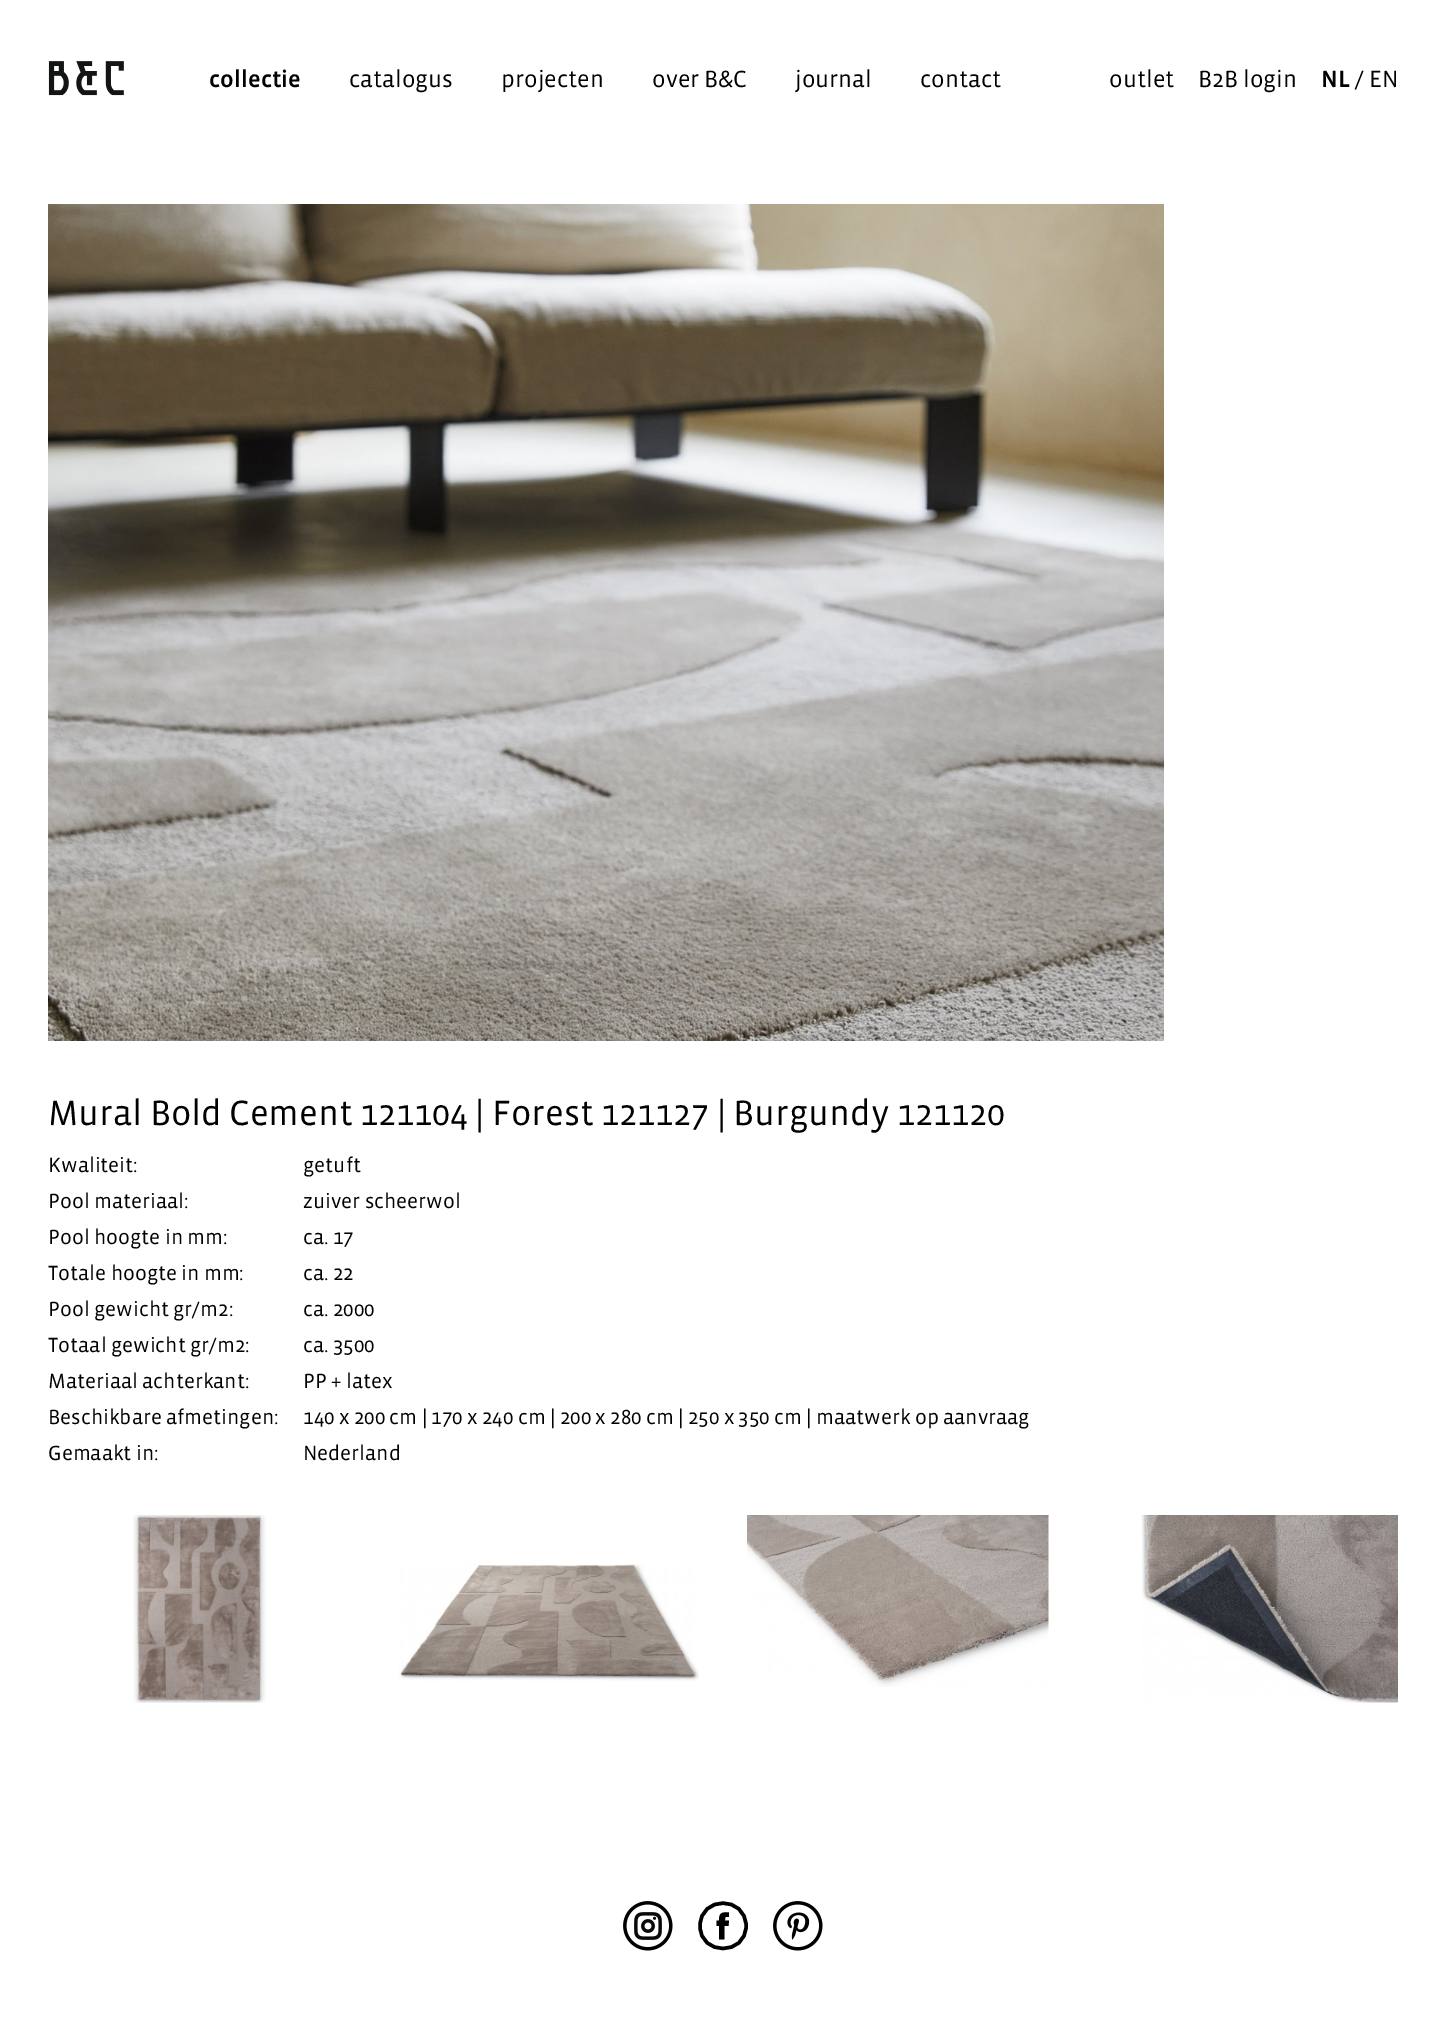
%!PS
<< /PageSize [1446 2023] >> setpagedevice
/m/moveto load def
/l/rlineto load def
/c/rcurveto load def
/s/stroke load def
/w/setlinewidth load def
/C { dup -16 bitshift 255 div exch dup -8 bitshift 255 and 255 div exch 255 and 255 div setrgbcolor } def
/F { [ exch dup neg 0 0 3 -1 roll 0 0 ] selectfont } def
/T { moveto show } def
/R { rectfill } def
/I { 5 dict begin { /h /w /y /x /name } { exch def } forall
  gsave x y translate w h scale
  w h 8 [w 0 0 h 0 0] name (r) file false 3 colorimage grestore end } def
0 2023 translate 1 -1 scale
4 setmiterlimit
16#FFFFFF C
0 0 1446 2023 R
(1.rgb) 48 61 76 35 I
/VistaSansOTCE-Medium 24 F
16#000000 C
(collectie) 209 87 T
/VistaSansOTCE-Regular 24 F
(catalogus) 349 87 T
(projecten) 501 87 T
(over B&C) 652 87 T
(journal) 795 87 T
(contact) 920 87 T
(outlet) 1109 87 T
(B2B login) 1198 87 T
/VistaSansOTCE-Medium 24 F
(NL) 1321 87 T
/VistaSansOTCE-Regular 24 F
(/ EN) 1355 87 T
(2.rgb) 48 204 1116 837 I
/VistaSansOTCE-Regular 36 F
(Mural Bold Cement 121104 | Forest 121127 | Burgundy 121120) 48 1125 T
/VistaSansOTCE-Regular 21 F
(Kwaliteit:) 48 1172 T
(getuft) 303 1172 T
(Pool materiaal:) 48 1208 T
(zuiver scheerwol) 303 1208 T
(Pool hoogte in mm:) 48 1244 T
(ca. 17) 303 1244 T
(Totale hoogte in mm:) 48 1280 T
(ca. 22) 303 1280 T
(Pool gewicht gr/m2:) 48 1316 T
(ca. 2000) 303 1316 T
(Totaal gewicht gr/m2:) 48 1352 T
(ca. 3500) 303 1352 T
(Materiaal achterkant:) 48 1388 T
(PP + latex) 303 1388 T
(Beschikbare afmetingen:) 48 1424 T
(140 x 200 cm | 170 x 240 cm | 200 x 280 cm | 250 x 350 cm | maatwerk op aanvraag) 303 1424 T
(Gemaakt in:) 48 1460 T
(Nederland) 303 1460 T
(3.rgb) 133 1515 133 188 I
(4.rgb) 398 1564 301 117 I
(5.rgb) 747 1515 302 172 I
(6.rgb) 1141 1515 257 188 I
(7.rgb) 623 1901 50 50 I
3.5 w
746 1926 m 0 30 -46 30 -46 0 c 0 -30.5 46 -30.5 46 0 c s
725 1920.5 m 0 -4.5 .5 -3.5 4 -3.5 c 0 -4.5 l -7 -.5 -10 0 -10 8 c -2.5 0 l 0 5.5 l 2.5 0 l 0 13.5 l 5.5 0 l 0 -13.5 l 4 0 l .5 -5.5 l -4 0 l eofill
(8.rgb) 773 1901 50 50 I
showpage
